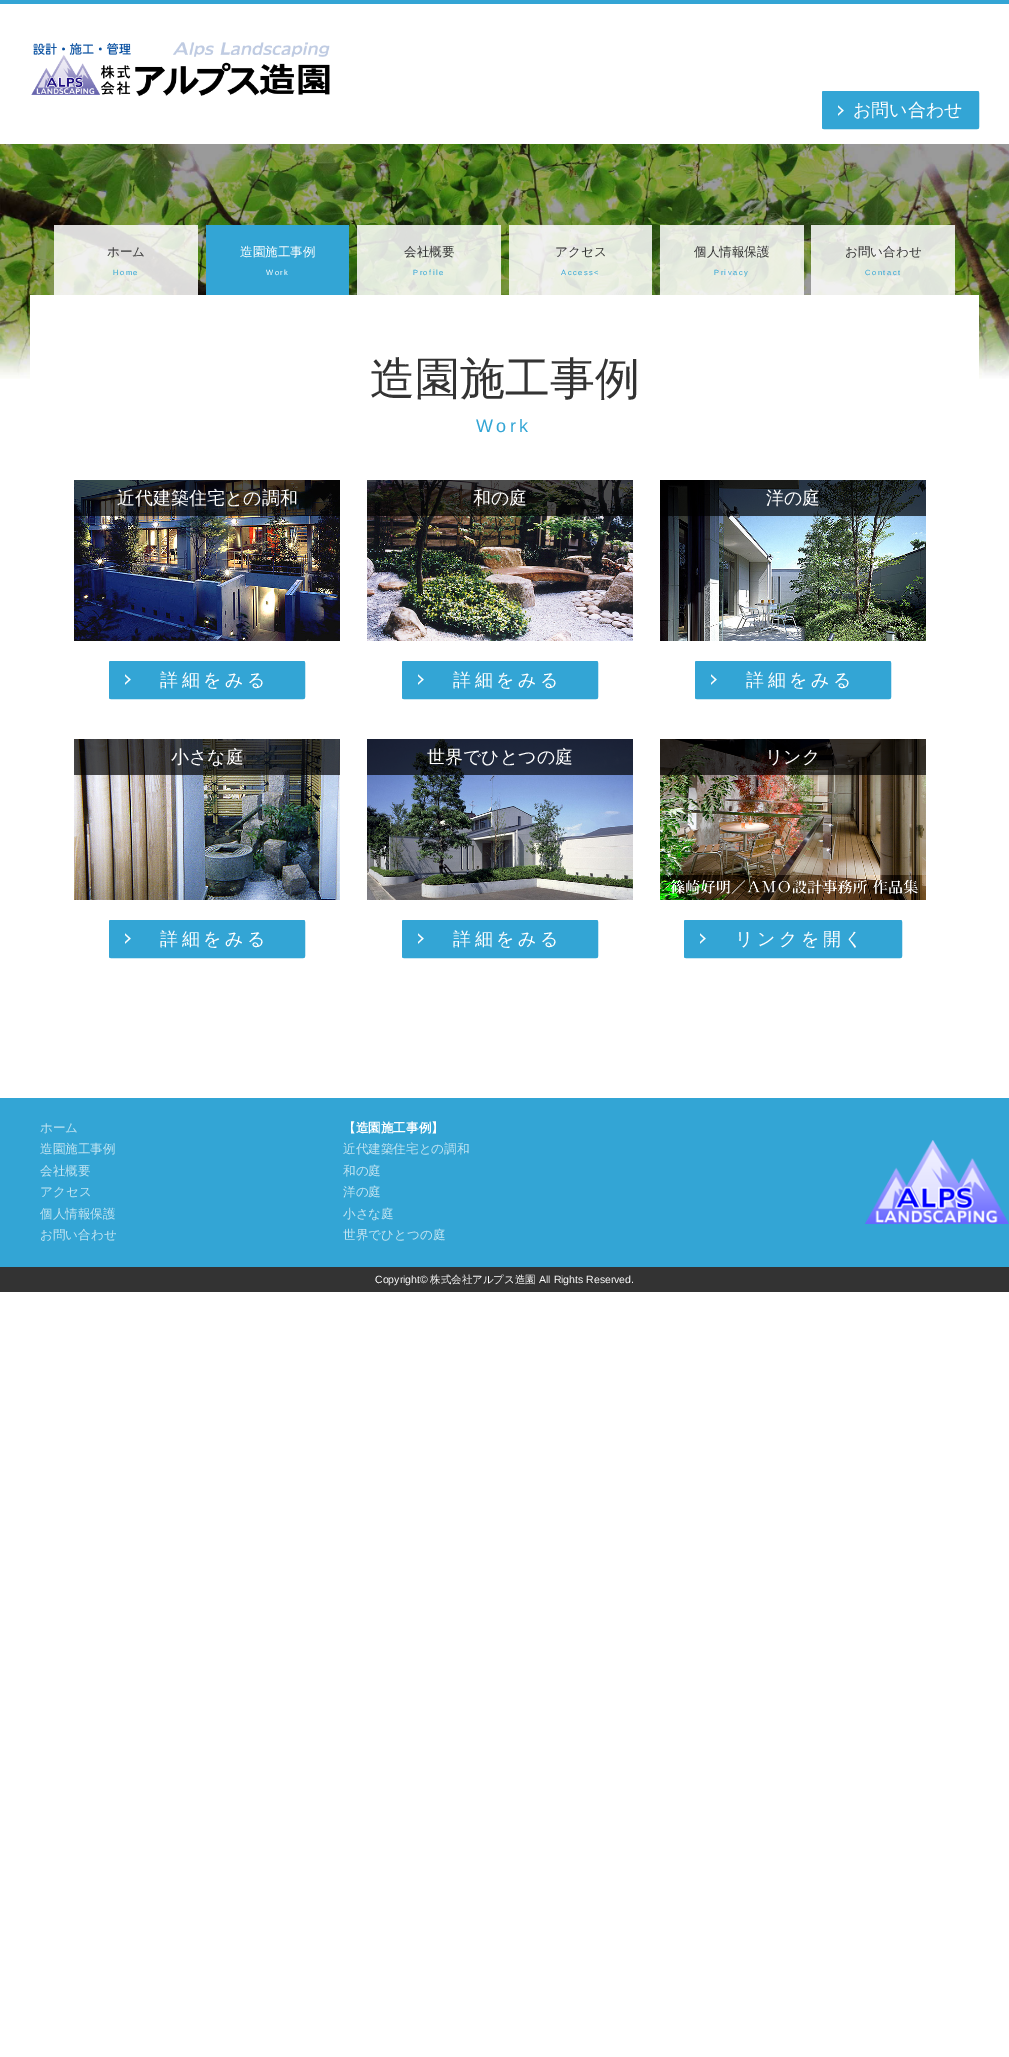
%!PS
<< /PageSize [1009 2057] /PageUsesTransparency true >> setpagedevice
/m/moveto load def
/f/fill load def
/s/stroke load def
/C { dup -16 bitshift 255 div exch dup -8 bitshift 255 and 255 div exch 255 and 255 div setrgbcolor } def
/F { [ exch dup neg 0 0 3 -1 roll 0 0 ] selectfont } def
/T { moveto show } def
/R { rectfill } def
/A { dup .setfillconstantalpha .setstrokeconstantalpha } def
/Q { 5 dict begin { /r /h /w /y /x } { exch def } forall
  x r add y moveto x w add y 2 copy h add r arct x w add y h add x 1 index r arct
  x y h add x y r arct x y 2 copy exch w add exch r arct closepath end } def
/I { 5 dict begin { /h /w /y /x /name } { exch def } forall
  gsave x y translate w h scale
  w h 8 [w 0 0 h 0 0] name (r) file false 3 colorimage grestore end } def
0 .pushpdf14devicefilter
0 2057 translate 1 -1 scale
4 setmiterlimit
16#FFFFFF C
0 0 1009 2057 R
16#33A5D5 C
0 0 1009 4 R
(1.rgb) 31 42 299 54 I
822 91 157 38 2 Q f
(2.rgb) 838 105 6 11 I
822.5 91.5 156 37 1.5 Q s
/WenQuanYiZenHei-Medium 18 F
16#FFFFFF C
(お問い合わせ) 853 116 T
(3.rgb) 0 144 1009 235 I
0.85 A
54 225 144 70 R
/WenQuanYiZenHei-Medium 12.6 F
1 A
16#333333 C
(ホーム) 107 256 T
/LiberationSans-Regular 7.5 F
16#33A5D5 C
113 275 m 1.5 0 (Home) ashow
206 225 143 70 R
/WenQuanYiZenHei-Medium 12.6 F
16#FFFFFF C
(造園施工事例) 240 256 T
/LiberationSans-Regular 7.5 F
266 275 m 1.5 0 (Work) ashow
0.85 A
357 225 144 70 R
/WenQuanYiZenHei-Medium 12.6 F
1 A
16#333333 C
(会社概要) 404 256 T
/LiberationSans-Regular 7.5 F
16#33A5D5 C
413 275 m 1.5 0 (Profile) ashow
0.85 A
16#FFFFFF C
509 225 143 70 R
/WenQuanYiZenHei-Medium 12.6 F
1 A
16#333333 C
(アクセス) 555 256 T
/LiberationSans-Regular 7.5 F
16#33A5D5 C
561 275 m 1.5 0 (Access<) ashow
0.85 A
16#FFFFFF C
660 225 144 70 R
/WenQuanYiZenHei-Medium 12.6 F
1 A
16#333333 C
(個人情報保護) 694 256 T
/LiberationSans-Regular 7.5 F
16#33A5D5 C
714 275 m 1.5 0 (Privacy) ashow
0.85 A
16#FFFFFF C
811 225 144 70 R
/WenQuanYiZenHei-Medium 12.6 F
1 A
16#333333 C
(お問い合わせ) 845 256 T
/LiberationSans-Regular 7.5 F
16#33A5D5 C
865 275 m 1.5 0 (Contact) ashow
16#FFFFFF C
30 295 949 84 R
/WenQuanYiZenHei-Medium 45 F
16#333333 C
(造園施工事例) 370 394 T
/LiberationSans-Regular 18 F
16#33A5D5 C
476 432 m 3.5 0 (Work) ashow
(4.rgb) 74 480 266 161 I
0.7 A
16#000000 C
74 480 266 36 R
/WenQuanYiZenHei-Medium 18 F
1 A
16#FFFFFF C
(近代建築住宅との調和) 117 504 T
16#33A5D5 C
109 661 196 38 2 Q f
(2.rgb) 125 674 6 11 I
109.5 661.5 195 37 1.5 Q s
16#FFFFFF C
160 686 m 3.5 0 (詳細をみる) ashow
(5.rgb) 367 480 266 161 I
0.7 A
16#000000 C
367 480 266 36 R
1 A
16#FFFFFF C
(和の庭) 473 504 T
16#33A5D5 C
402 661 196 38 2 Q f
(2.rgb) 418 674 6 11 I
402.5 661.5 195 37 1.5 Q s
16#FFFFFF C
453 686 m 3.5 0 (詳細をみる) ashow
(6.rgb) 660 480 266 161 I
0.7 A
16#000000 C
660 480 266 36 R
1 A
16#FFFFFF C
(洋の庭) 766 504 T
16#33A5D5 C
695 661 196 38 2 Q f
(2.rgb) 711 674 6 11 I
695.5 661.5 195 37 1.5 Q s
16#FFFFFF C
746 686 m 3.5 0 (詳細をみる) ashow
(7.rgb) 74 739 266 161 I
0.7 A
16#000000 C
74 739 266 36 R
1 A
16#FFFFFF C
(小さな庭) 171 763 T
16#33A5D5 C
109 920 196 38 2 Q f
(2.rgb) 125 933 6 11 I
109.5 920.5 195 37 1.5 Q s
16#FFFFFF C
160 945 m 3.5 0 (詳細をみる) ashow
(8.rgb) 367 739 266 161 I
0.7 A
16#000000 C
367 739 266 36 R
1 A
16#FFFFFF C
(世界でひとつの庭) 427 763 T
16#33A5D5 C
402 920 196 38 2 Q f
(2.rgb) 418 933 6 11 I
402.5 920.5 195 37 1.5 Q s
16#FFFFFF C
453 945 m 3.5 0 (詳細をみる) ashow
(9.rgb) 660 739 266 161 I
0.7 A
16#000000 C
660 739 266 36 R
1 A
16#FFFFFF C
(リンク) 765 763 T
16#33A5D5 C
684 920 218 38 2 Q f
(2.rgb) 700 933 6 11 I
684.5 920.5 217 37 1.5 Q s
16#FFFFFF C
735 945 m 3.5 0 (リンクを開く) ashow
16#33A5D5 C
0 1098 1009 169 R
(10.rgb) 865 1140 144 84 I
/WenQuanYiZenHei-Medium 12.6 F
16#C2E4F2 C
(ホーム) 40 1132 T
(造園施工事例) 40 1153 T
(会社概要) 40 1175 T
(アクセス) 40 1196 T
(個人情報保護) 40 1218 T
(お問い合わせ) 40 1239 T
/WenQuanYiZenHei-Bold 12.6 F
16#FFFFFF C
(【造園施工事例】) 343 1132 T
/WenQuanYiZenHei-Medium 12.6 F
16#C2E4F2 C
(近代建築住宅との調和) 343 1153 T
(和の庭) 343 1175 T
(洋の庭) 343 1196 T
(小さな庭) 343 1218 T
(世界でひとつの庭) 343 1239 T
16#333333 C
0 1267 1009 25 R
/LiberationSans-Regular 10.5 F
16#FFFFFF C
(Copyright©) 375 1283 T
/WenQuanYiZenHei-Medium 10.5 F
(株式会社アルプス造園) 430 1283 T
/LiberationSans-Regular 10.5 F
(All Rights Reserved.) 539 1283 T
.poppdf14devicefilter showpage
